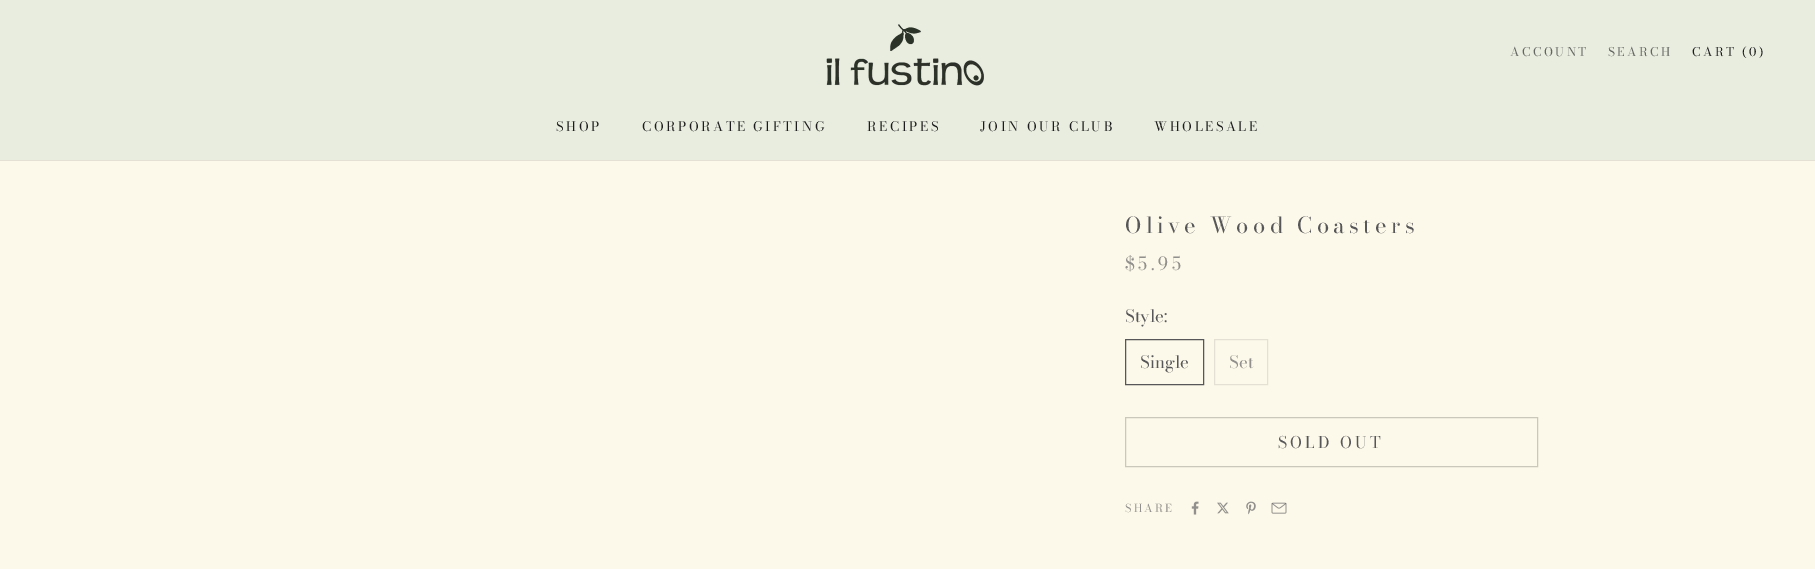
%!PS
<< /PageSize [1815 569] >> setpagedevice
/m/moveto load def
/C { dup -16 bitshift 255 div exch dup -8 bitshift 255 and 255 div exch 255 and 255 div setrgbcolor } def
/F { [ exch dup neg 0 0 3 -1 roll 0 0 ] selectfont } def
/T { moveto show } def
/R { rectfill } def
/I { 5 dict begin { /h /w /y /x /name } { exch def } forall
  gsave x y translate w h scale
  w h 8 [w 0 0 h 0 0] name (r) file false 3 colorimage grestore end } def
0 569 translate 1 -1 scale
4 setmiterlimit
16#FDF9EA C
0 0 1815 569 R
16#E8EDDF C
0 0 1815 160 R
16#E4E1D4 C
0 160 1815 1 R
(1.rgb) 826 24 158 62 I
/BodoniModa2-Regular 12 F
16#636560 C
1510 56 m 2.5 0 (ACCOUNT) ashow
1608 56 m 2.5 0 (SEARCH) ashow
16#1C1C1C C
1692 56 m 2.5 0 (CART \(0\)) ashow
/BodoniModa2-Regular 13 F
556 131 m 2.6 0 (SHOP) ashow
642 131 m -1 0 32 2.6 0 (CORPORATE GIFTING) awidthshow
867 131 m 2.6 0 (RECIPES) ashow
980 131 m 2.6 0 (JOIN OUR CLUB) ashow
1154 131 m 2.6 0 (WHOLESALE) ashow
/BodoniModa-Regular 22 F
16#575759 C
1125 233 m 4.4 0 (Olive Wood Coasters) ashow
/BodoniModa2-Regular 18 F
16#91908C C
1125 270 m 3.5 0 ($5.95) ashow
/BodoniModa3-Regular 17 F
16#575759 C
(Style:) 1125 322 T
1125.5 339.5 78 45 rectstroke
(Single) 1140 368 T
16#E4E1D4 C
1214.5 339.5 53 45 rectstroke
16#91908C C
(Set) 1229 368 T
16#CAC7BB C
1125.5 417.5 412 49 rectstroke
/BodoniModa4-Regular 16 F
16#575759 C
1278 448 m 3.25 0 (SOLD OUT) ashow
/BodoniModa2-Regular 11 F
16#91908C C
1125 512 m 2.25 0 (SHARE) ashow
(2.rgb) 1191 501 8 14 I
(3.rgb) 1217 502 12 12 I
(4.rgb) 1246 501 10 14 I
(5.rgb) 1271 502 16 12 I
showpage
